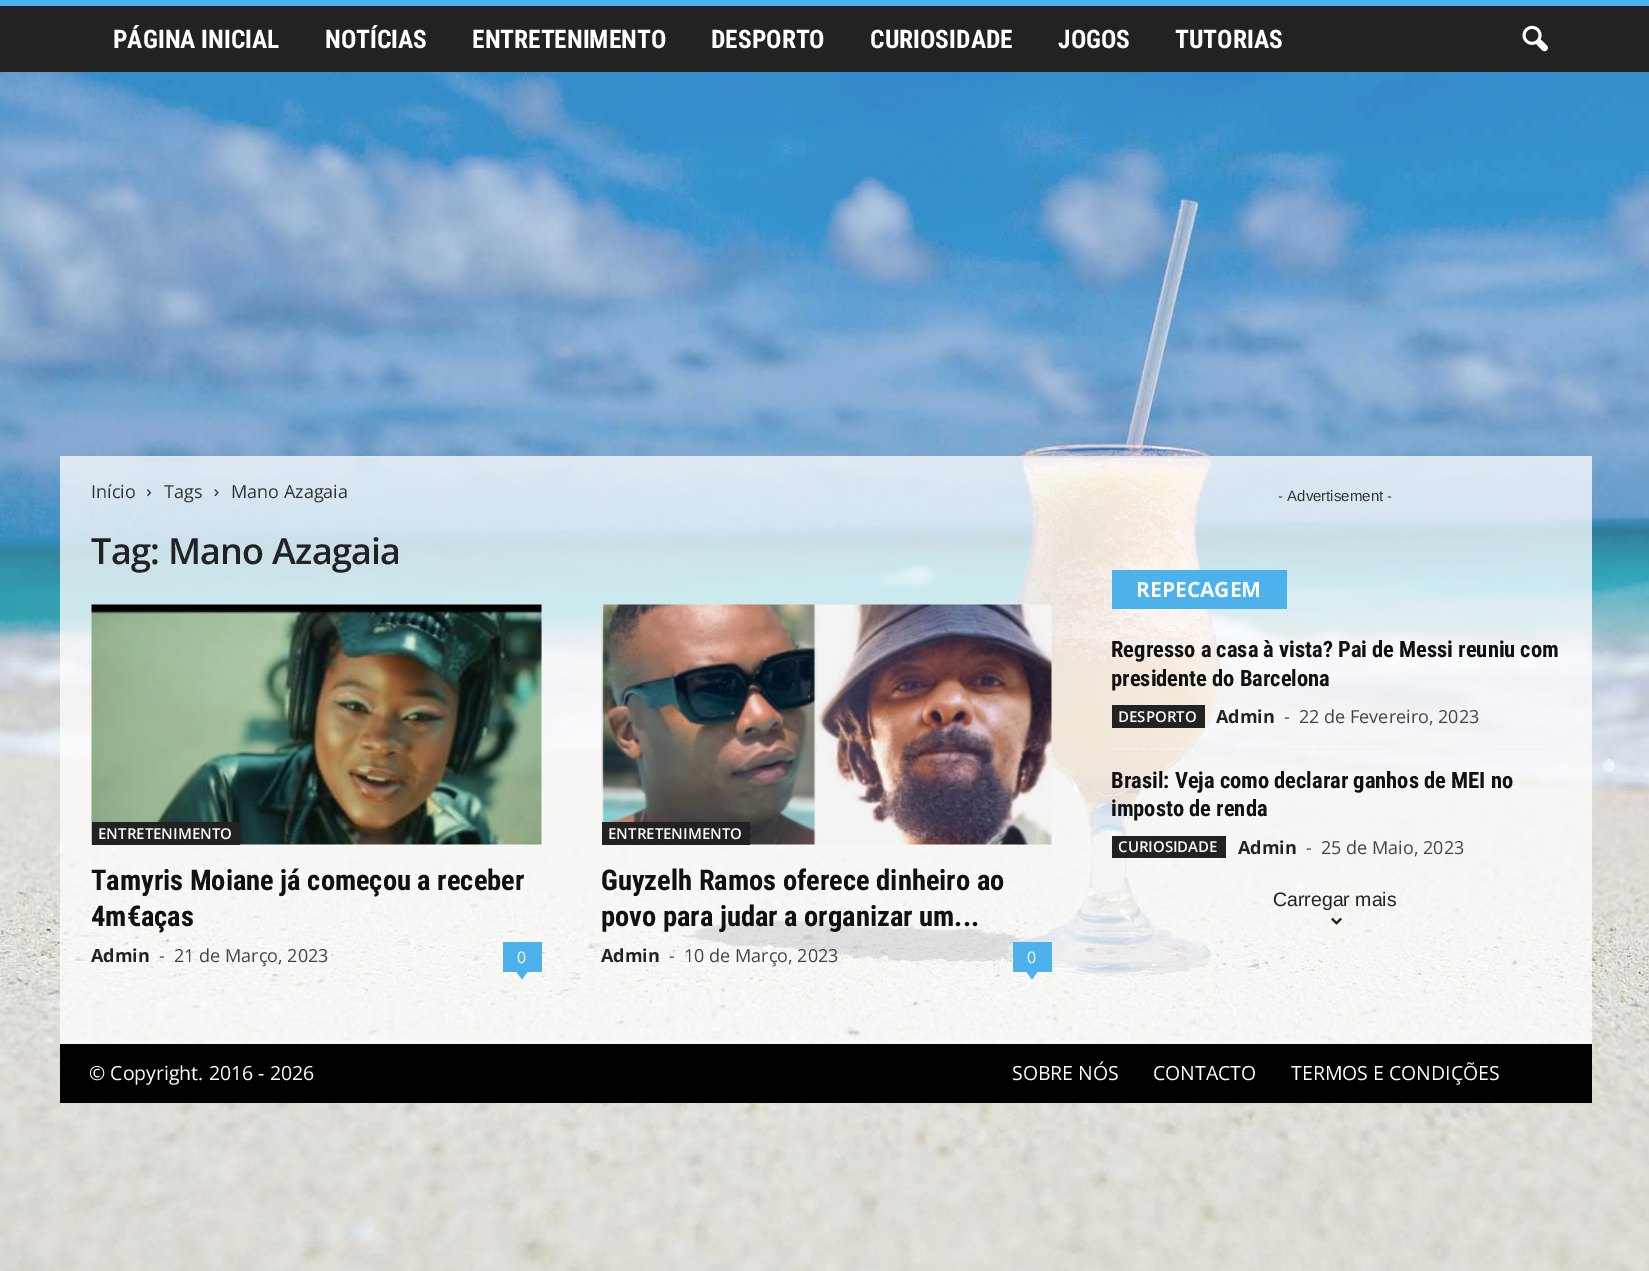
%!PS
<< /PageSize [1649 1271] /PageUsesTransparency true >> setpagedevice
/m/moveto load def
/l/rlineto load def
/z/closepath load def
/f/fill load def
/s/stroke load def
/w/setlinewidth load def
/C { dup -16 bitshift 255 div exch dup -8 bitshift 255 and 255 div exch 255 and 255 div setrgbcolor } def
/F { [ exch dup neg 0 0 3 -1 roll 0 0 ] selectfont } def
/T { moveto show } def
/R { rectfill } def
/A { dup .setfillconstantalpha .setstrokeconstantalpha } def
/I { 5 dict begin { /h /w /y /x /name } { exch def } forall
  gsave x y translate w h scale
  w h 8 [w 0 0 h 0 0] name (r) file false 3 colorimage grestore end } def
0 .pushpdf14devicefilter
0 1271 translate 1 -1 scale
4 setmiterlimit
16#FFFFFF C
0 0 1649 1271 R
16#222222 C
0 6 1649 66 R
16#4DB2EC C
0 0 1649 6 R
/RobotoCondensed-Bold 25.5 F
16#FFFFFF C
(PÁGINA INICIAL) 113 48 T
(NOTÍCIAS) 325 48 T
(ENTRETENIMENTO) 472 48 T
(DESPORTO) 711 48 T
(CURIOSIDADE) 870 48 T
(JOGOS) 1058 48 T
(TUTORIAS) 1175 48 T
(1.rgb) 1522 25 26 27 I
(7.rgb) 0 72 1649 1199 I
16#E6E6E6 C
60 456 1532 2 R
0.75 A
16#FFFFFF C
60 458 1532 586 R
/OpenSans-Regular 18 F
1 A
16#333333 C
(Início) 91 498 T
(2.rgb) 147 489 4 8 I
(Tags) 164 498 T
(3.rgb) 214 489 5 8 I
(Mano Azagaia) 231 498 T
/OpenSans-SemiBold 36 F
16#222222 C
91 564 m -.75 0 (Tag: Mano Azagaia) ashow
(4.rgb) 91 604 451 241 I
92 822 148 23 R
/OpenSans-SemiBold 15 F
16#FFFFFF C
(ENTRETENIMENTO) 98 839 T
/RobotoCondensed-Bold 28.5 F
16#111111 C
(Tamyris Moiane já começou a receber) 91 890 T
(4m€aças) 91 926 T
/OpenSans-Bold 18 F
16#222222 C
(Admin) 91 962 T
/OpenSans-Regular 18 F
16#444444 C
(-) 159 962 T
(21 de Março, 2023) 174 962 T
16#4DB2EC C
503 942 39 30 R
/OpenSans-Regular 16 F
16#FFFFFF C
(0) 517 963 T
16#4DB2EC C
514.5 969 m 15 0 l -7.5 10.5 l z f
(5.rgb) 601 604 451 241 I
16#222222 C
602 822 148 23 R
/OpenSans-SemiBold 15 F
16#FFFFFF C
(ENTRETENIMENTO) 608 839 T
/RobotoCondensed-Bold 28.5 F
16#111111 C
(Guyzelh Ramos oferece dinheiro ao) 601 890 T
(povo para judar a organizar um...) 601 926 T
/OpenSans-Bold 18 F
16#222222 C
(Admin) 601 962 T
/OpenSans-Regular 18 F
16#444444 C
(-) 669 962 T
(10 de Março, 2023) 684 962 T
16#4DB2EC C
1013 942 39 30 R
/OpenSans-Regular 16 F
16#FFFFFF C
(0) 1027 963 T
16#4DB2EC C
1024.5 969 m 15 0 l -7.5 10.5 l z f
/LiberationSans-Regular 15 F
16#333333 C
(- Advertisement -) 1278 501 T
16#4DB2EC C
1112 570 175 39 R
/OpenSans-Bold 21 F
16#FFFFFF C
(REPECAGEM) 1136 597 T
16#F1F1F1 C
1.5 w
[4.5 3.04] 0 setdash
1111.5 749 m 450 0 l s
/RobotoCondensed-Bold 22.5 F
16#111111 C
(Regresso a casa à vista? Pai de Messi reuniu com) 1111 657 T
(presidente do Barcelona) 1111 686 T
16#222222 C
1112 705 93 23 R
/OpenSans-SemiBold 15 F
16#FFFFFF C
(DESPORTO) 1118 722 T
/OpenSans-Bold 18 F
16#222222 C
(Admin) 1216 723 T
/OpenSans-Regular 18 F
16#444444 C
(-) 1284 723 T
(22 de Fevereiro, 2023) 1299 723 T
/RobotoCondensed-Bold 22.5 F
16#111111 C
(Brasil: Veja como declarar ganhos de MEI no) 1111 788 T
(imposto de renda) 1111 816 T
16#222222 C
1112 836 114 22 R
/OpenSans-SemiBold 15 F
16#FFFFFF C
(CURIOSIDADE) 1118 852 T
/OpenSans-Bold 18 F
16#222222 C
(Admin) 1238 854 T
/OpenSans-Regular 18 F
16#444444 C
(-) 1306 854 T
(25 de Maio, 2023) 1321 854 T
/LiberationSans-Regular 19.5 F
16#222222 C
(Carregar mais) 1273 906 T
(6.rgb) 1331 917 11 8 I
16#000000 C
60 1044 1532 59 R
/OpenSans-Regular 19.5 F
16#FFFFFF C
(© Copyright. 2016 - 2026) 89 1080 T
(SOBRE NÓS) 1012 1080 T
(CONTACTO) 1153 1080 T
(TERMOS E CONDIÇÕES) 1291 1080 T
.poppdf14devicefilter showpage
